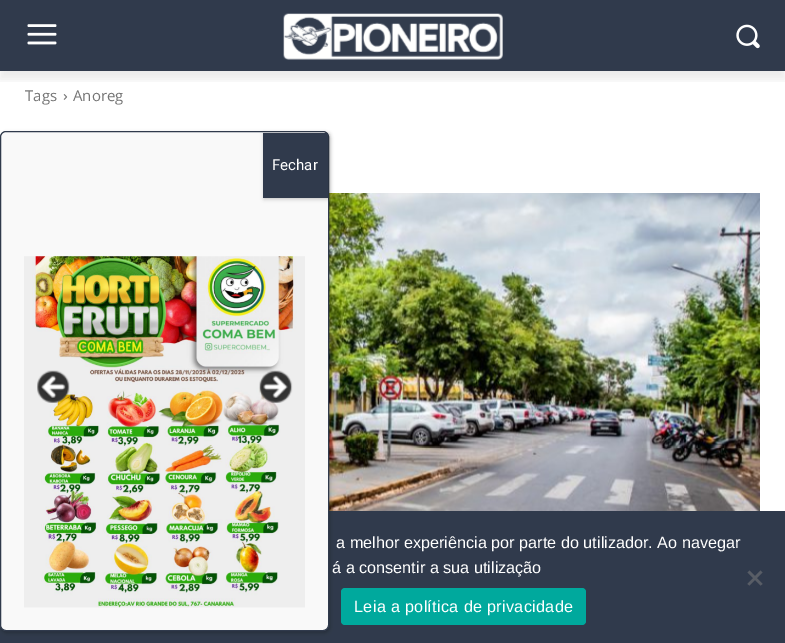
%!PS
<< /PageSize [785 643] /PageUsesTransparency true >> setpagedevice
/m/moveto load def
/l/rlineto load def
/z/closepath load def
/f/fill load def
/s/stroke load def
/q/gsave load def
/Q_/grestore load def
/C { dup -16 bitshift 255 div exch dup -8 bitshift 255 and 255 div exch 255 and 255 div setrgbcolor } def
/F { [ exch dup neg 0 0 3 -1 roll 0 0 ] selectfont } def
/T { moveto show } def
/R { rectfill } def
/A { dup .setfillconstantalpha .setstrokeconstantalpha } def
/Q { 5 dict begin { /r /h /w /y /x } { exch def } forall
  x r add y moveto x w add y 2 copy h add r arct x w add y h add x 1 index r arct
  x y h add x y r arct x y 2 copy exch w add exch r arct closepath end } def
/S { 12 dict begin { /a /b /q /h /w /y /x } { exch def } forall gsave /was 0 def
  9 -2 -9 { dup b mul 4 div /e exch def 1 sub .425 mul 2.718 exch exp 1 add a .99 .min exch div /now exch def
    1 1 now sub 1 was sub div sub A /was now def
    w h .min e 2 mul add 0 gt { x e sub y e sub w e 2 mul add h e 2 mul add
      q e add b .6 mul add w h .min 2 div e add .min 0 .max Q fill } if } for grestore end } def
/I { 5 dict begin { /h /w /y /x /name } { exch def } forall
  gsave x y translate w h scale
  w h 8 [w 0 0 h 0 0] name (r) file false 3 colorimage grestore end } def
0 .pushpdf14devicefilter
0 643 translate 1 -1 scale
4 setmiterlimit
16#FFFFFF C
0 0 785 643 R
16#303A4C C
0 0 785 71 R
(1.rgb) 27 24 30 21 I
(2.rgb) 283 13 220 47 I
(3.rgb) 736 24 24 25 I
(4.rgb) 63 94 5 6 I
q
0 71 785 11 rectclip
16#000000 C
0 8 785 71 0 5 .08 S
Q_
/OpenSans-Regular 15 F
16#747474 C
(Tags) 25 101 T
(Anoreg) 73 101 T
(5.rgb) 329 193 431 318 I
16#303A4C C
0 511 785 132 R
16#020202 C
1 133 329 500 6 2 .23 S
16#F9F9F9 C
.5 131.5 328 499 5.5 Q q f Q_
16#303A4C C
s
16#020202 C
264 134 65 65 0 2 .23 S
16#303A4C C
263 133 65 65 R
/Roboto-Regular 15 F
16#FFFFFF C
(Fechar) 272 170 T
(6.rgb) 24 256 281 352 I
(7.rgb) 37 370 33 33 I
(8.rgb) 259 370 34 33 I
/LiberationSans-Regular 16.25 F
(a melhor experiência por parte do utilizador. Ao navegar) 336 548 T
(á a consentir a sua utilização) 332 573 T
16#585D66 C
760.5 570.5 m 2 2 l -13 13 l -2 -1.5 l z f
747.5 572.5 m 2 -2 l 13 13.5 l -2 1.5 l z f
16#00A99D C
341 588 245 37 4 Q f
16#FFFFFF C
354 612 m .3 0 (Leia a política de privacidade) ashow
.poppdf14devicefilter showpage
